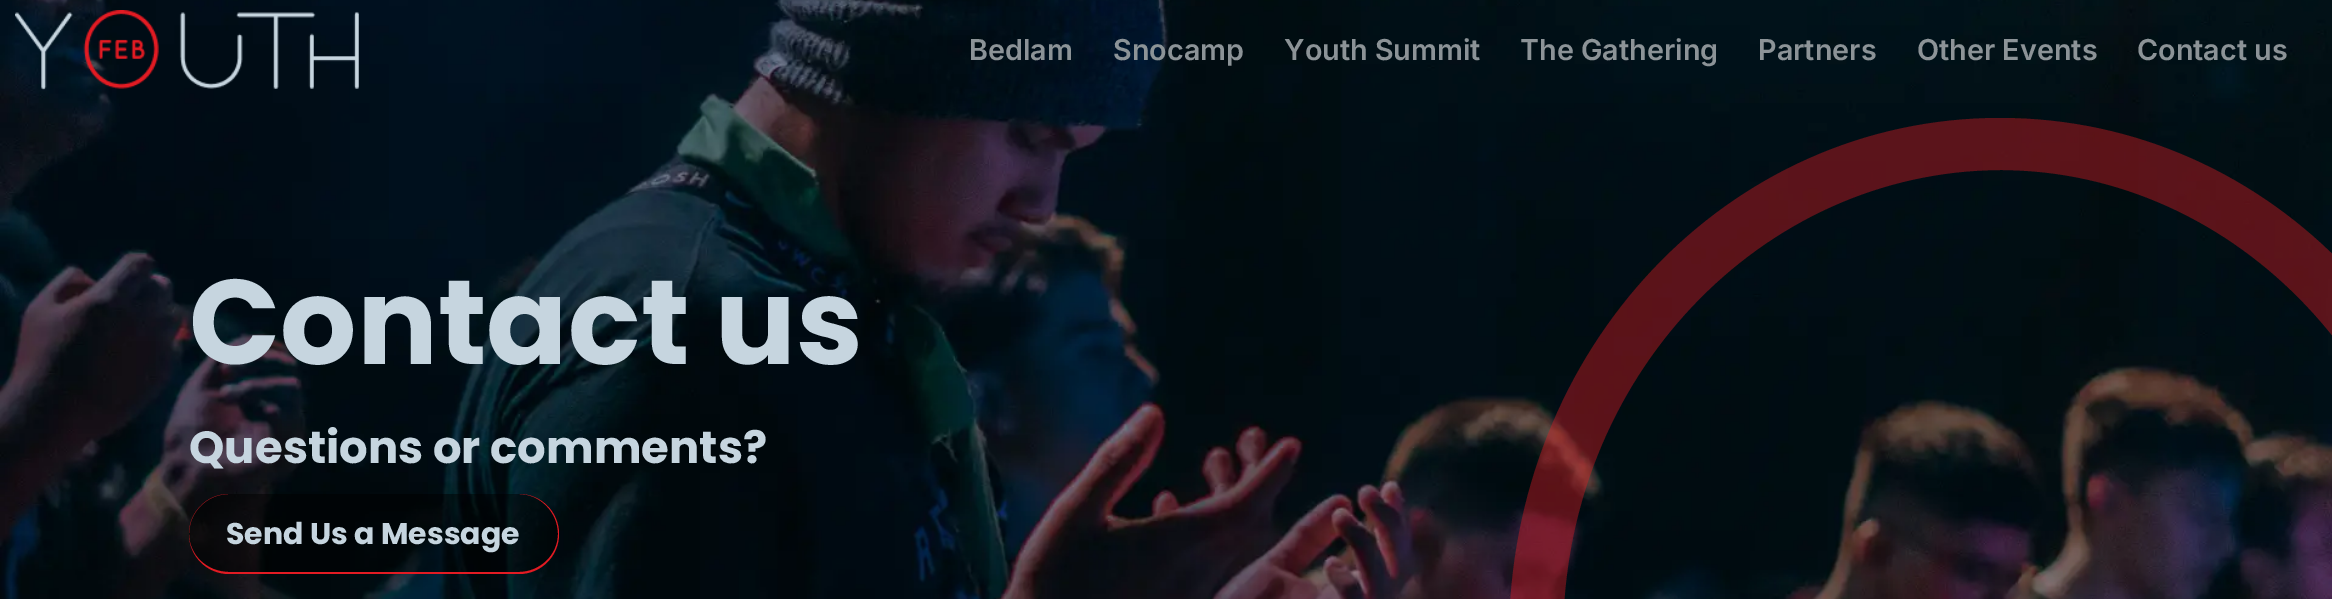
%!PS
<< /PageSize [2332 599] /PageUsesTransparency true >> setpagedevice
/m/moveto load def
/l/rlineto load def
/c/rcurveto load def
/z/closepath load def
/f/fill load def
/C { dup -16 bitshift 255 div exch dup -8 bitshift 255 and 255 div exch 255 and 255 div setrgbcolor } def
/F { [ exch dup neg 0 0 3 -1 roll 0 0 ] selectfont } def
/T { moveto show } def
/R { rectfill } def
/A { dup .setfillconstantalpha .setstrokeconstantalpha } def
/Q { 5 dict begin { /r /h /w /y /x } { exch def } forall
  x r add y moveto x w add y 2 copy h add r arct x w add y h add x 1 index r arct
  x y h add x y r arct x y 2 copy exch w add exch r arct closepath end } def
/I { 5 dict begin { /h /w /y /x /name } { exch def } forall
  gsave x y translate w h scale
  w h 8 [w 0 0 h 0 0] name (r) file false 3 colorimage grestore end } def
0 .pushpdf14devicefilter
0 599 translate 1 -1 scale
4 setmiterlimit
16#FFFFFF C
0 0 2332 599 R
(2.rgb) 0 0 2332 599 I
(1.rgb) 15 10 344 80 I
/Inter-SemiBold 28.75 F
16#8C9397 C
(Bedlam) 969 60 T
(Snocamp) 1113 60 T
(Youth Summit) 1284 60 T
(The Gathering) 1520 60 T
(Partners) 1758 60 T
(Other Events) 1917 60 T
(Contact us) 2137 60 T
/Poppins-Bold 120 F
16#C6D5DF C
(Contact us) 189 364 T
/Poppins-Bold 45 F
(Questions or comments?) 189 463 T
0.5 A
16#000000 C
189 494 370 80 40 Q f
1 A
16#E31B23 C
229 494 m 290 0 l 22 0 40 18 40 40 c 0 22 -18 40 -40 40 c -290 0 l -22 0 -40 -18 -40 -40 c 0 -22 18 -40 40 -40 c z 229 494 m 290 0 l 21 0 39 18 39 40 c 0 21 -18 38 -39 38 c -290 0 l -22 0 -40 -17 -40 -38 c 0 -22 18 -40 40 -40 c z eofill
/Poppins-Bold 30 F
16#C6D5DF C
(Send Us a Message) 226 544 T
0.4 A
16#E31B23 C
2000 118 m -273 0 -490 232 -491 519 c 1 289 218 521 491 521 c 273 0 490 -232 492 -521 c -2 -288 -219 -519 -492 -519 c z 2000 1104 m -239 -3 -437 -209 -437 -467 c 0 -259 198 -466 437 -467 c 237 0 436 208 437 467 c -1 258 -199 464 -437 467 c z f
.poppdf14devicefilter showpage
